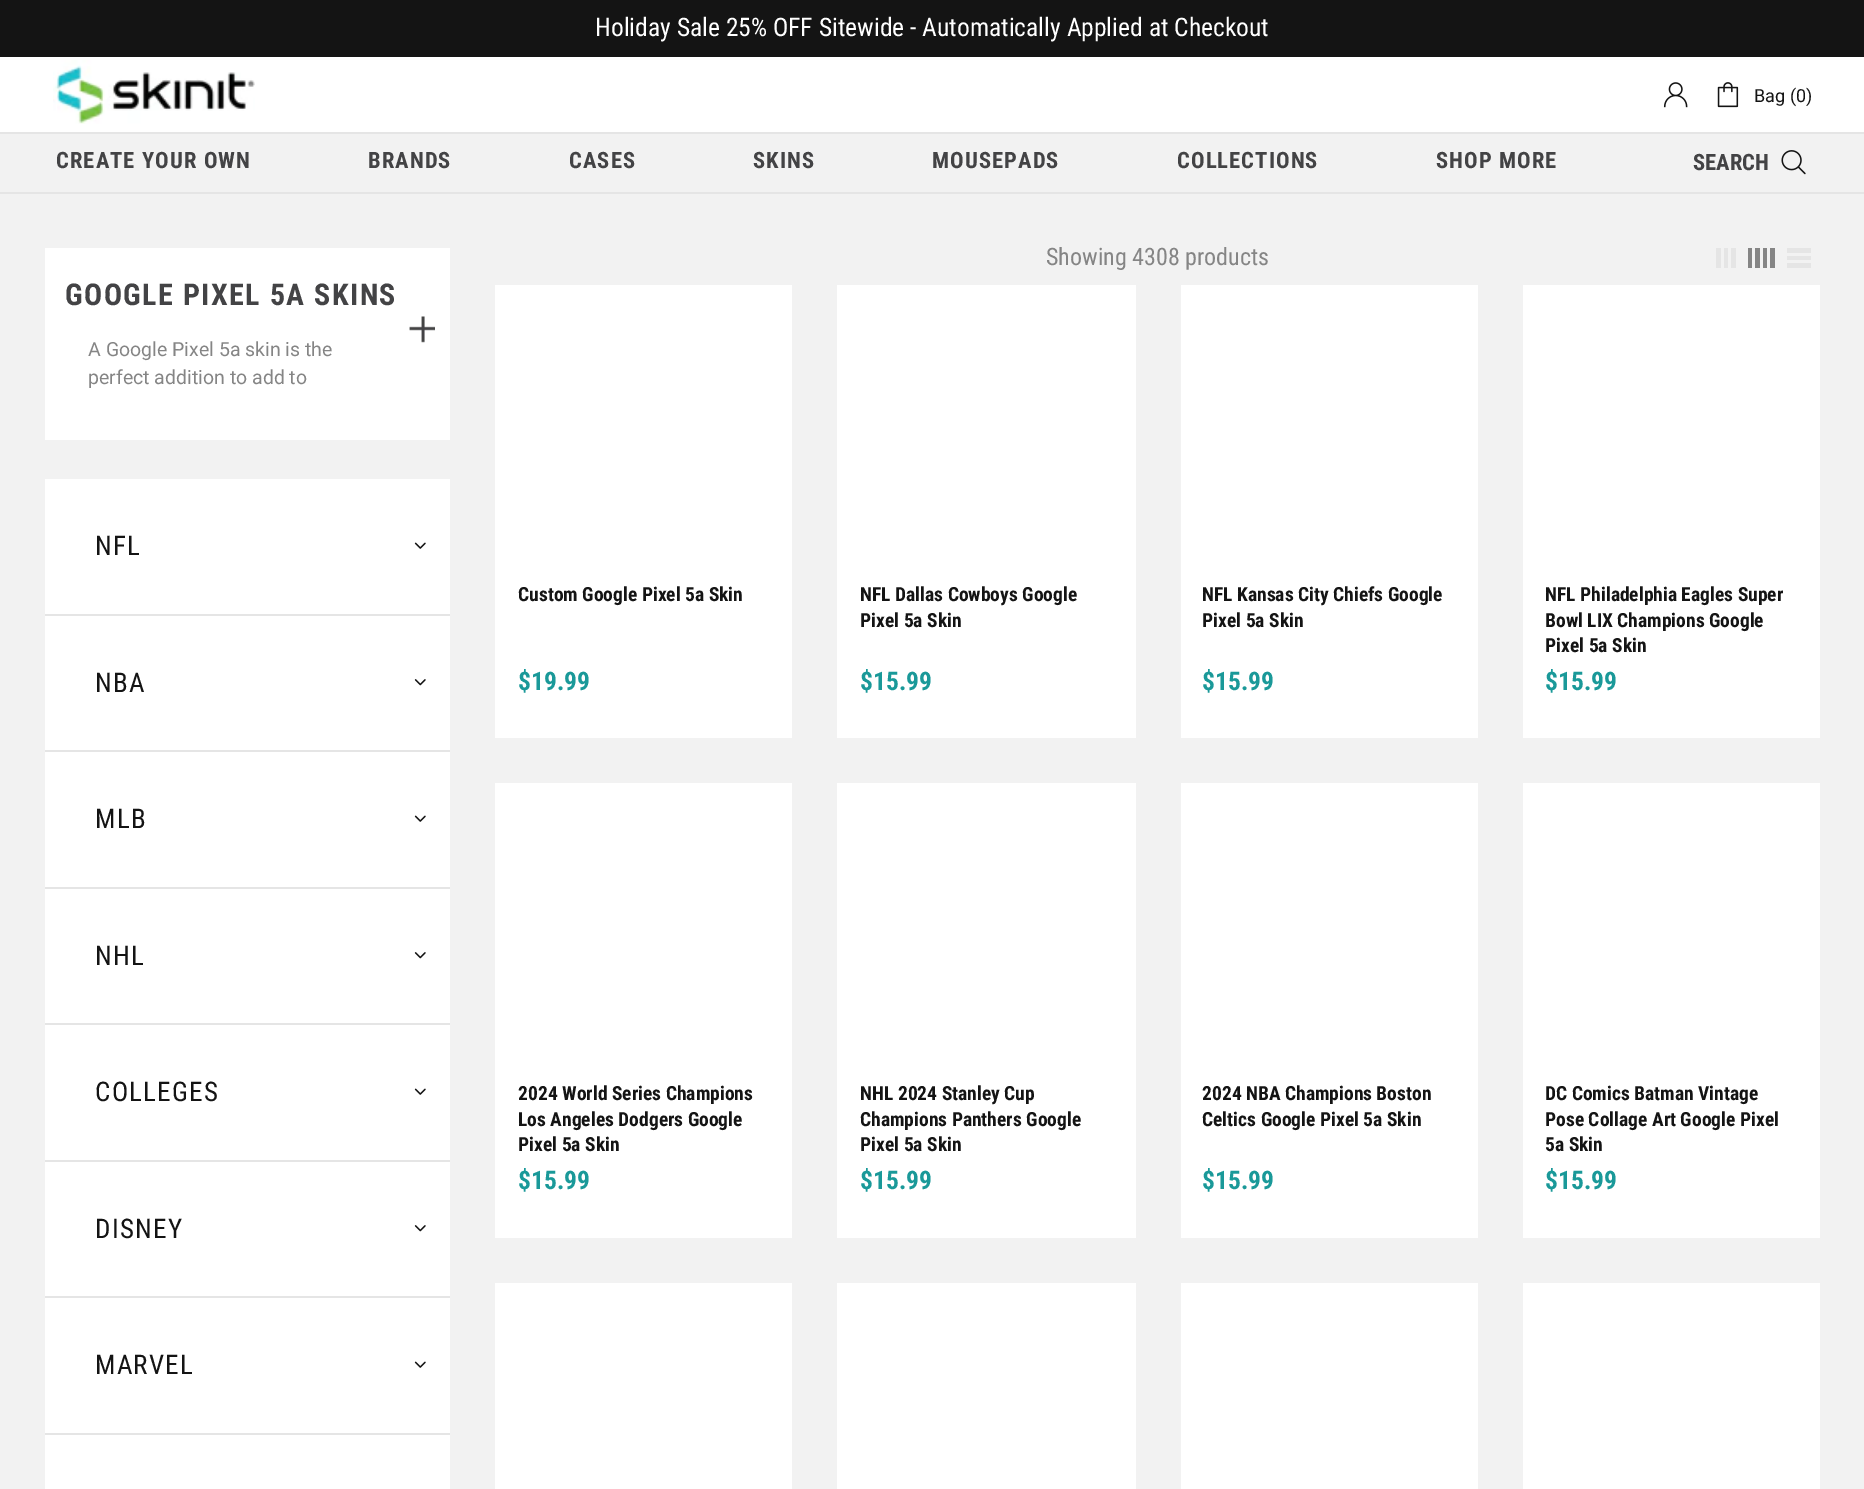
%!PS
<< /PageSize [1864 1489] >> setpagedevice
/m/moveto load def
/C { dup -16 bitshift 255 div exch dup -8 bitshift 255 and 255 div exch 255 and 255 div setrgbcolor } def
/F { [ exch dup neg 0 0 3 -1 roll 0 0 ] selectfont } def
/T { moveto show } def
/R { rectfill } def
/I { 5 dict begin { /h /w /y /x /name } { exch def } forall
  gsave x y translate w h scale
  w h 8 [w 0 0 h 0 0] name (r) file false 3 colorimage grestore end } def
0 1489 translate 1 -1 scale
4 setmiterlimit
16#FFFFFF C
0 0 1864 1489 R
16#141414 C
0 0 1864 57 R
/RobotoCondensed-Regular 25.5 F
16#FFFFFF C
(Holiday Sale 25% OFF Sitewide - Automatically Applied at Checkout) 595 36 T
16#E5E5E5 C
0 132 1864 2 R
(1.rgb) 53 60 202 64 I
(2.rgb) 1663 82 25 26 I
(3.rgb) 1717 82 22 26 I
/Roboto-Regular 18 F
16#141414 C
(Bag \(0\)) 1754 102 T
16#F2F2F2 C
0 134 1864 58 R
16#E5E5E5 C
0 192 1864 2 R
/RobotoCondensed-Bold 22.5 F
16#434345 C
56 168 m 1.1 0 (CREATE YOUR OWN) ashow
368 168 m 1.1 0 (BRANDS) ashow
569 168 m 1.1 0 (CASES) ashow
753 168 m 1.1 0 (SKINS) ashow
932 168 m 1.1 0 (MOUSEPADS) ashow
1177 168 m 1.1 0 (COLLECTIONS) ashow
1436 168 m 1.1 0 (SHOP MORE) ashow
(SEARCH) 1693 170 T
(4.rgb) 1781 150 25 25 I
16#F2F2F2 C
0 194 1864 1295 R
16#FFFFFF C
45 248 405 1241 R
/RobotoCondensed-Bold 30 F
16#434345 C
65 305 m 1.5 0 (GOOGLE PIXEL 5A SKINS) ashow
(5.rgb) 409 316 26 27 I
/Roboto-Regular 19.5 F
16#858585 C
(A Google Pixel 5a skin is the) 88 356 T
(perfect addition to add to) 88 384 T
16#F2F2F2 C
45 440 405 39 R
16#E5E5E5 C
45 614 405 2 R
/RobotoCondensed-Regular 27 F
16#141414 C
95 555 m 1.25 0 (NFL) ashow
(6.rgb) 414 542 12 7 I
16#E5E5E5 C
45 750 405 2 R
16#141414 C
95 692 m 1.25 0 (NBA) ashow
(7.rgb) 414 679 12 7 I
16#E5E5E5 C
45 887 405 2 R
16#141414 C
95 828 m 1.25 0 (MLB) ashow
(6.rgb) 414 815 12 7 I
16#E5E5E5 C
45 1023 405 2 R
16#141414 C
95 965 m 1.25 0 (NHL) ashow
(7.rgb) 414 952 12 7 I
16#E5E5E5 C
45 1160 405 2 R
16#141414 C
95 1101 m 1.25 0 (COLLEGES) ashow
(6.rgb) 414 1088 12 7 I
16#E5E5E5 C
45 1296 405 2 R
16#141414 C
95 1238 m 1.25 0 (DISNEY) ashow
(7.rgb) 414 1225 12 7 I
16#E5E5E5 C
45 1433 405 2 R
16#141414 C
95 1374 m 1.25 0 (MARVEL) ashow
(6.rgb) 414 1361 12 7 I
/RobotoCondensed-Regular 24 F
16#858585 C
(Showing 4308 products) 1046 265 T
16#E5E5E5 C
1716 248 5 20 R
1724 248 4 20 R
1731 248 5 20 R
16#858585 C
1748 248 4 20 R
1755 248 5 20 R
1763 248 4 20 R
1770 248 5 20 R
16#E5E5E5 C
1787 248 24 5 R
1787 256 24 4 R
1787 263 24 5 R
16#FFFFFF C
495 285 297 453 R
/RobotoCondensed-Bold 19.5 F
16#141414 C
(Custom Google Pixel 5a Skin) 518 601 T
/RobotoCondensed-Bold 25.5 F
16#1A9999 C
($19.99) 518 690 T
16#FFFFFF C
837 285 299 453 R
/RobotoCondensed-Bold 19.5 F
16#141414 C
(NFL Dallas Cowboys Google) 860 601 T
(Pixel 5a Skin) 860 627 T
/RobotoCondensed-Bold 25.5 F
16#1A9999 C
($15.99) 860 690 T
16#FFFFFF C
1181 285 297 453 R
/RobotoCondensed-Bold 19.5 F
16#141414 C
(NFL Kansas City Chiefs Google) 1202 601 T
(Pixel 5a Skin) 1202 627 T
/RobotoCondensed-Bold 25.5 F
16#1A9999 C
($15.99) 1202 690 T
16#FFFFFF C
1523 285 297 453 R
/RobotoCondensed-Bold 19.5 F
16#141414 C
(NFL Philadelphia Eagles Super) 1545 601 T
(Bowl LIX Champions Google) 1545 627 T
(Pixel 5a Skin) 1545 652 T
/RobotoCondensed-Bold 25.5 F
16#1A9999 C
($15.99) 1545 690 T
16#FFFFFF C
495 783 297 455 R
/RobotoCondensed-Bold 19.5 F
16#141414 C
(2024 World Series Champions) 518 1100 T
(Los Angeles Dodgers Google) 518 1126 T
(Pixel 5a Skin) 518 1151 T
/RobotoCondensed-Bold 25.5 F
16#1A9999 C
($15.99) 518 1189 T
16#FFFFFF C
837 783 299 455 R
/RobotoCondensed-Bold 19.5 F
16#141414 C
(NHL 2024 Stanley Cup) 860 1100 T
(Champions Panthers Google) 860 1126 T
(Pixel 5a Skin) 860 1151 T
/RobotoCondensed-Bold 25.5 F
16#1A9999 C
($15.99) 860 1189 T
16#FFFFFF C
1181 783 297 455 R
/RobotoCondensed-Bold 19.5 F
16#141414 C
(2024 NBA Champions Boston) 1202 1100 T
(Celtics Google Pixel 5a Skin) 1202 1126 T
/RobotoCondensed-Bold 25.5 F
16#1A9999 C
($15.99) 1202 1189 T
16#FFFFFF C
1523 783 297 455 R
/RobotoCondensed-Bold 19.5 F
16#141414 C
(DC Comics Batman Vintage) 1545 1100 T
(Pose Collage Art Google Pixel) 1545 1126 T
(5a Skin) 1545 1151 T
/RobotoCondensed-Bold 25.5 F
16#1A9999 C
($15.99) 1545 1189 T
16#FFFFFF C
495 1283 297 206 R
837 1283 299 206 R
1181 1283 297 206 R
1523 1283 297 206 R
showpage
